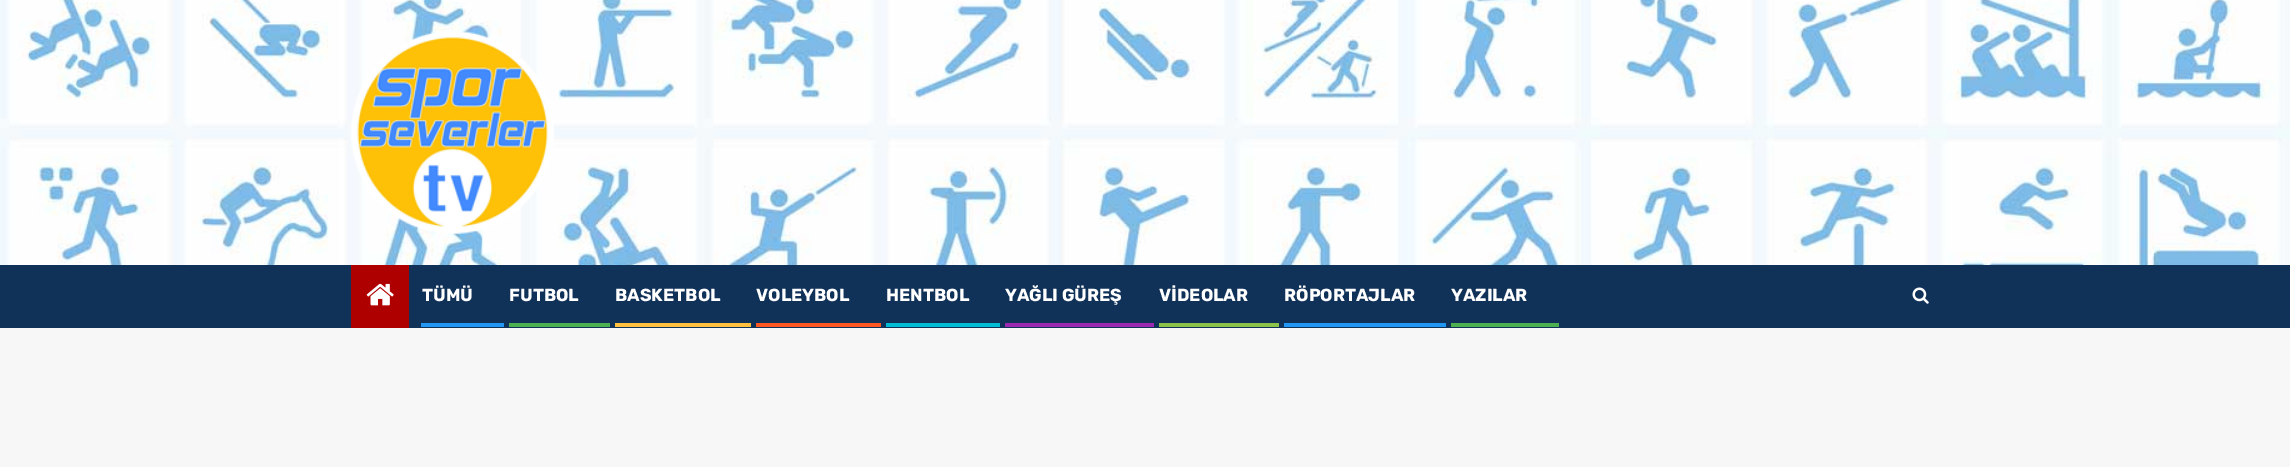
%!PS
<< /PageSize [2290 467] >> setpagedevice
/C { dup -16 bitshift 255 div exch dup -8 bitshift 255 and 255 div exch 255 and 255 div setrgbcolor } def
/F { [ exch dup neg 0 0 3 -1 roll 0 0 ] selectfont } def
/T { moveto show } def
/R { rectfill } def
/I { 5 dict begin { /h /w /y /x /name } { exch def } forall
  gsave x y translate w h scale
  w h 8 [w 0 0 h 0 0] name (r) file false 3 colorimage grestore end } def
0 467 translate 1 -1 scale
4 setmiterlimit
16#F7F7F7 C
0 0 2290 467 R
(1.rgb) 0 0 2290 265 I
(2.rgb) 351 31 203 203 I
16#103158 C
0 265 2290 63 R
16#AF0000 C
351 265 58 63 R
(3.rgb) 366 283 28 23 I
/Rubik-Bold 17.5 F
16#FFFFFF C
(TÜMÜ) 422 301 T
16#2196F3 C
421 323 83 4 R
16#FFFFFF C
(FUTBOL) 509 301 T
16#4CAF50 C
509 323 101 4 R
16#FFFFFF C
(BASKETBOL) 615 301 T
16#FFBF3F C
615 323 136 4 R
16#FFFFFF C
(VOLEYBOL) 756 301 T
16#FF5722 C
756 323 125 4 R
16#FFFFFF C
(HENTBOL) 886 301 T
16#00BCD4 C
886 323 114 4 R
16#FFFFFF C
(YAĞLI GÜREŞ) 1005 301 T
16#9C27B0 C
1005 323 149 4 R
16#FFFFFF C
(VİDEOLAR) 1159 301 T
16#8BC34A C
1159 323 120 4 R
16#FFFFFF C
(RÖPORTAJLAR) 1284 301 T
16#2196F3 C
1284 323 162 4 R
16#FFFFFF C
(YAZILAR) 1451 301 T
16#4CAF50 C
1451 323 108 4 R
(4.rgb) 1912 287 17 17 I
showpage
